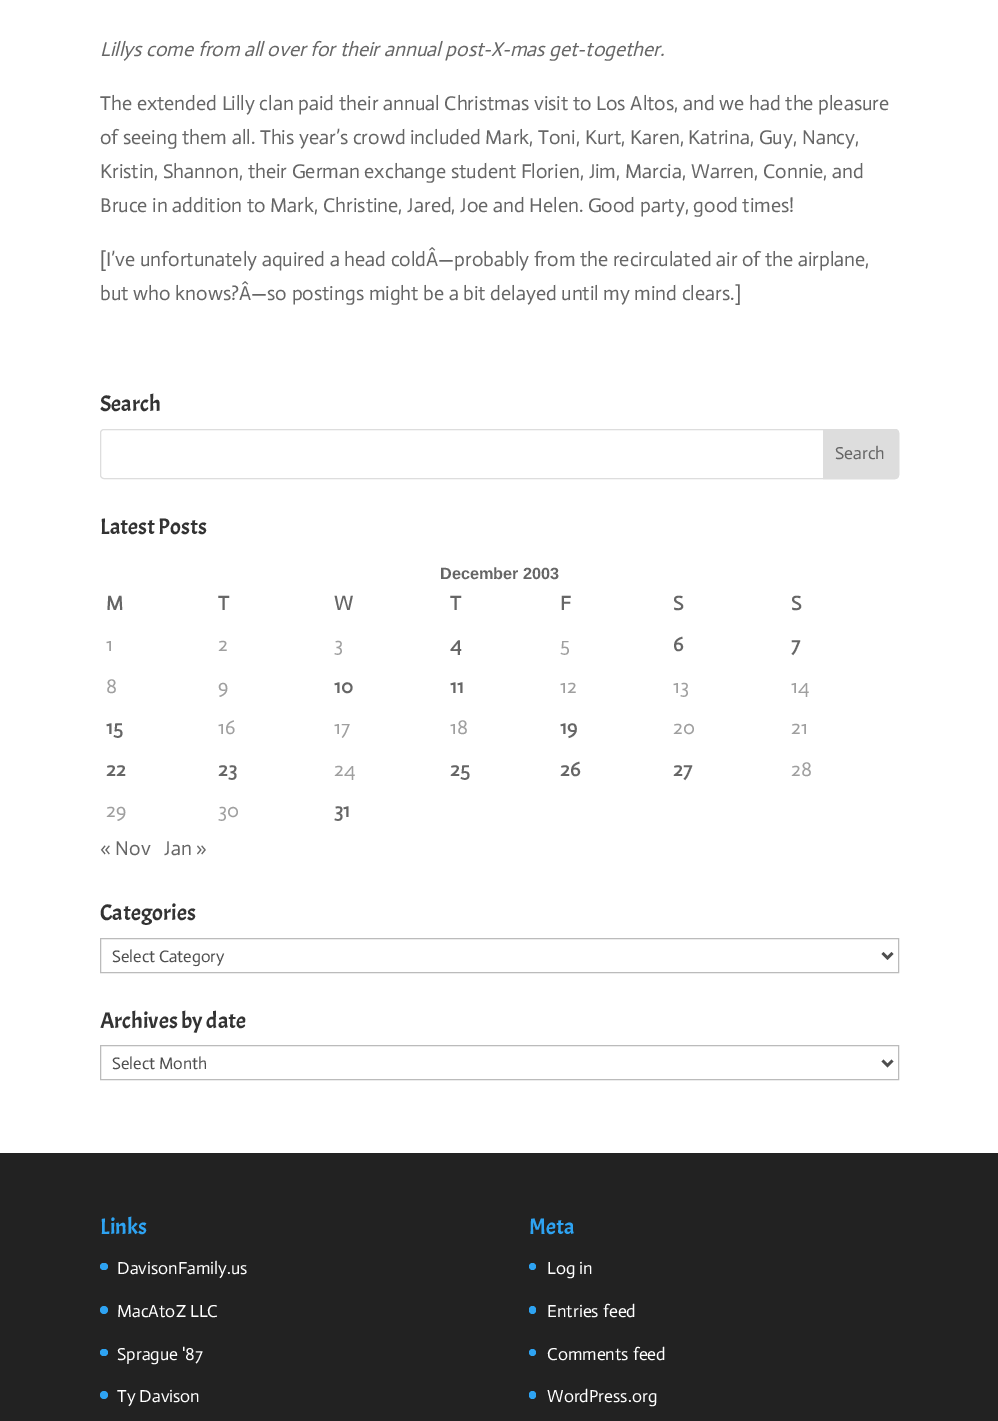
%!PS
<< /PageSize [998 1421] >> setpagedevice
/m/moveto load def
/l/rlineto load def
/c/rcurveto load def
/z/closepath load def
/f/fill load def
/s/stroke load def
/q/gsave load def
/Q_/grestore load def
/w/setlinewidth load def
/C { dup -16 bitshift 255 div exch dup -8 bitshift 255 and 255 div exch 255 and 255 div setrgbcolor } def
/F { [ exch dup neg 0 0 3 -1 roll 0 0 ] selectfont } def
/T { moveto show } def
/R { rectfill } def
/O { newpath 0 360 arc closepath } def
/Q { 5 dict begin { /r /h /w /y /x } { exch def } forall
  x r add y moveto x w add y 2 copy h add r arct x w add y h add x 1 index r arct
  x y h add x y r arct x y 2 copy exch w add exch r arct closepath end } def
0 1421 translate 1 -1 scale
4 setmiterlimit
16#FFFFFF C
0 0 998 1421 R
/Actor-Italic 20 F
16#666666 C
(Lillys come from all over for their annual post-X-mas get-together.) 100 56 T
/Actor-Regular 20 F
(The extended Lilly clan paid their annual Christmas visit to Los Altos, and we had the pleasure) 100 110 T
(of seeing them all. This year’s crowd included Mark, Toni, Kurt, Karen, Katrina, Guy, Nancy,) 100 144 T
(Kristin, Shannon, their German exchange student Florien, Jim, Marcia, Warren, Connie, and) 100 178 T
(Bruce in addition to Mark, Christine, Jared, Joe and Helen. Good party, good times!) 100 212 T
([I’ve unfortunately aquired a head coldÂ—probably from the recirculated air of the airplane,) 100 266 T
(but who knows?Â—so postings might be a bit delayed until my mind clears.]) 100 300 T
/Acme-Regular 22.5 F
16#333333 C
(Search) 100 411 T
16#DDDDDD C
100.5 429.5 798 49 3.5 Q s
823.5 429.5 m 71.5 0 l 2 0 3.5 1.5 3.5 3.5 c 0 42 l 0 2 -1.5 3.5 -3.5 3.5 c -71.5 0 l z q f Q_
s
/Actor-Regular 17.5 F
16#666666 C
(Search) 835 459 T
/Acme-Regular 22.5 F
16#333333 C
(Latest Posts) 100 534 T
/LiberationSans-Bold 16.25 F
16#666666 C
(December 2003) 440 579 T
/Actor-Bold 20 F
(M) 106 610 T
(T) 218 610 T
(W) 334 610 T
(T) 450 610 T
(F) 560 610 T
(S) 673 610 T
(S) 791 610 T
/Actor-Regular 20 F
16#9F9F9F C
(1) 106 651 T
(2) 218 651 T
(3) 334 651 T
/Actor-Bold 20 F
16#666666 C
(4) 450 651 T
/Actor-Regular 20 F
16#9F9F9F C
(5) 560 651 T
/Actor-Bold 20 F
16#666666 C
(6) 673 651 T
(7) 791 651 T
/Actor-Regular 20 F
16#9F9F9F C
(8) 106 693 T
(9) 218 693 T
/Actor-Bold 20 F
16#666666 C
(10) 334 693 T
(11) 450 693 T
/Actor-Regular 20 F
16#9F9F9F C
(12) 560 693 T
(13) 673 693 T
(14) 791 693 T
/Actor-Bold 20 F
16#666666 C
(15) 106 734 T
/Actor-Regular 20 F
16#9F9F9F C
(16) 218 734 T
(17) 334 734 T
(18) 450 734 T
/Actor-Bold 20 F
16#666666 C
(19) 560 734 T
/Actor-Regular 20 F
16#9F9F9F C
(20) 673 734 T
(21) 791 734 T
/Actor-Bold 20 F
16#666666 C
(22) 106 776 T
(23) 218 776 T
/Actor-Regular 20 F
16#9F9F9F C
(24) 334 776 T
/Actor-Bold 20 F
16#666666 C
(25) 450 776 T
(26) 560 776 T
(27) 673 776 T
/Actor-Regular 20 F
16#9F9F9F C
(28) 791 776 T
(29) 106 817 T
(30) 218 817 T
/Actor-Bold 20 F
16#666666 C
(31) 334 817 T
/Actor-Regular 20 F
(« Nov) 100 855 T
(Jan ») 164 855 T
/Acme-Regular 22.5 F
16#333333 C
(Categories) 100 920 T
16#BBBBBB C
100.5 938.5 798 34 rectstroke
16#4E4E4E C
2.5 w
882.5 953 m 5 5 l 5 -5 l s
/Actor-Regular 16.75 F
(Select Category) 112 962 T
/Acme-Regular 22.5 F
16#333333 C
(Archives by date) 100 1028 T
16#BBBBBB C
1 w
100.5 1045.5 798 34 rectstroke
16#4E4E4E C
2.5 w
882.5 1060.5 m 5 5 l 5 -5 l s
/Actor-Regular 16.75 F
(Select Month) 112 1069 T
16#222222 C
0 1153 998 268 R
/Acme-Regular 22.5 F
16#2EA3F2 C
(Links) 100 1234 T
100 1263 8 7 3.5 Q f
/Actor-Regular 17.5 F
16#FFFFFF C
(DavisonFamily.us) 117 1274 T
16#2EA3F2 C
104 1310 4 O f
16#FFFFFF C
(MacAtoZ LLC) 117 1317 T
16#2EA3F2 C
100 1349 8 7 3.5 Q f
16#FFFFFF C
(Sprague '87) 117 1360 T
16#2EA3F2 C
104 1395 4 O f
16#FFFFFF C
(Ty Davison) 117 1402 T
/Acme-Regular 22.5 F
16#2EA3F2 C
(Meta) 529 1234 T
532.5 1266.5 3.5 O f
/Actor-Regular 17.5 F
16#FFFFFF C
(Log in) 547 1274 T
16#2EA3F2 C
529 1306 7 8 3.5 Q f
16#FFFFFF C
(Entries feed) 547 1317 T
16#2EA3F2 C
532.5 1352.5 3.5 O f
16#FFFFFF C
(Comments feed) 547 1360 T
16#2EA3F2 C
529 1391 7 8 3.5 Q f
16#FFFFFF C
(WordPress.org) 547 1402 T
showpage
